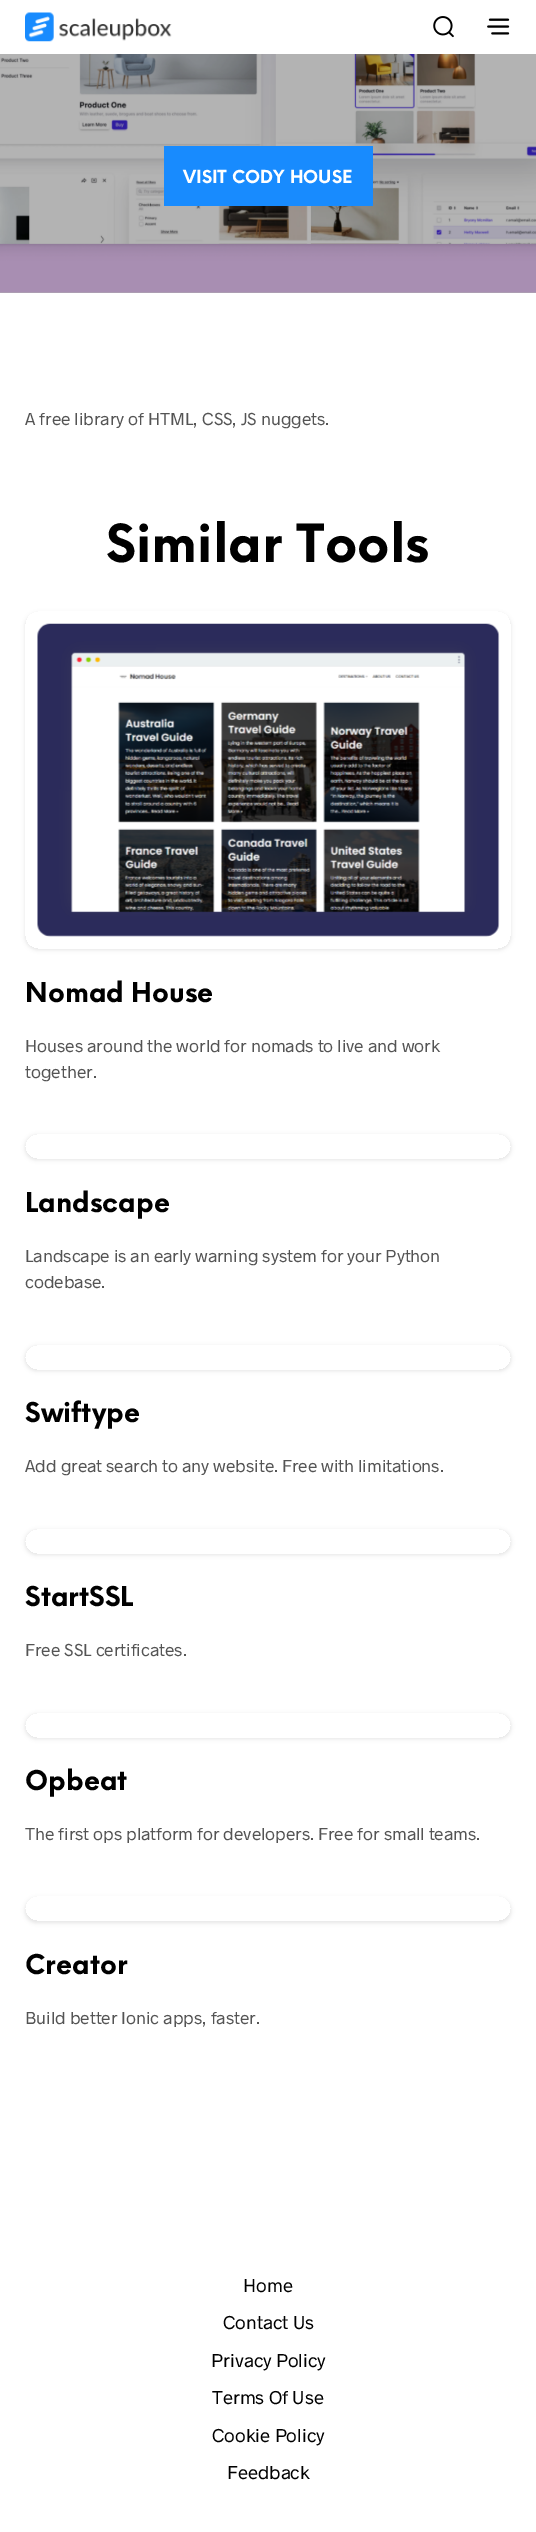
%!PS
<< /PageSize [536 2532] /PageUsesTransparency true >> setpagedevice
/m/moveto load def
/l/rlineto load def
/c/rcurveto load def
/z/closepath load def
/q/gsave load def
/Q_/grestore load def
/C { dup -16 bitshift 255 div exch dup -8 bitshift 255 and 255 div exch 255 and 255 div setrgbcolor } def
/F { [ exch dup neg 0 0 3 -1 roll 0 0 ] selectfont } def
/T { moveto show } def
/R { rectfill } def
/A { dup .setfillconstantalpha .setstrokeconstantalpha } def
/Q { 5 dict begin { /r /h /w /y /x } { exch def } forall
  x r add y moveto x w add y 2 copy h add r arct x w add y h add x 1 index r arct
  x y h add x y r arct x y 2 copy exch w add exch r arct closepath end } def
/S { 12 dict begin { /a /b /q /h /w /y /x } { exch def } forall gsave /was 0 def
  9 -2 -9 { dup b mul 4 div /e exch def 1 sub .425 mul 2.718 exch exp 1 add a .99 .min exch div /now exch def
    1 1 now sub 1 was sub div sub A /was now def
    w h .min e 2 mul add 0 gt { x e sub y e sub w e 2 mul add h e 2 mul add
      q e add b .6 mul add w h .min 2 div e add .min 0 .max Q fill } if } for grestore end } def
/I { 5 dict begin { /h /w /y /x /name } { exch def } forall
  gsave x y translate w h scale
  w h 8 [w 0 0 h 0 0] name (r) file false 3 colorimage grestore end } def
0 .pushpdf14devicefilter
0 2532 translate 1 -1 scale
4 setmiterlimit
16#FFFFFF C
0 0 536 2532 R
16#B3B3B3 C
0 292 536 1 R
(1.rgb) 25 12 147 30 I
(2.rgb) 433 16 21 22 I
(3.rgb) 487 18 23 17 I
(4.rgb) 0 54 536 239 I
16#188BFE C
164 146 209 60 R
/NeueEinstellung-Bold 17.5 F
16#FFFFFF C
(VISIT CODY HOUSE) 183 183 T
/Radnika-Regular 17.5 F
16#545454 C
(A free library of HTML, CSS, JS nuggets.) 25 425 T
/NeueEinstellung-Bold 51.25 F
16#000000 C
(Similar Tools) 106 562 T
q
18 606 m 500 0 l 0 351 l -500 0 l z 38 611 m 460 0 l 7 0 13 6 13 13 c 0 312 l 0 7 -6 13 -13 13 c -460 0 l -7 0 -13 -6 -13 -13 c 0 -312 l 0 -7 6 -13 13 -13 c z eoclip newpath
25 613 486 337 13 2 .1 S
Q_
(5.rgb) 37 623 463 314 I
/NeueEinstellung-Bold 26.75 F
(Nomad House) 25 1002 T
/Radnika-Regular 17.5 F
16#545454 C
(Houses around the world for nomads to live and work) 25 1052 T
(together.) 25 1078 T
q
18 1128 m 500 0 l 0 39 l -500 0 l z 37.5 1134 m 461 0 l 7 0 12.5 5.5 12.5 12.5 c 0 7 -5.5 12.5 -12.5 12.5 c -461 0 l -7 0 -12.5 -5.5 -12.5 -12.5 c 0 -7 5.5 -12.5 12.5 -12.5 c z eoclip newpath
16#000000 C
25 1135 486 25 12.5 2 .1 S
Q_
/NeueEinstellung-Bold 26.75 F
16#000000 C
(Landscape) 25 1212 T
/Radnika-Regular 17.5 F
16#545454 C
(Landscape is an early warning system for your Python) 25 1262 T
(codebase.) 25 1288 T
q
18 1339 m 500 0 l 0 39 l -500 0 l z 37.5 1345 m 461 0 l 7 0 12.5 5.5 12.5 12.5 c 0 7 -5.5 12.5 -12.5 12.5 c -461 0 l -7 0 -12.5 -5.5 -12.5 -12.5 c 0 -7 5.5 -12.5 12.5 -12.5 c z eoclip newpath
16#000000 C
25 1346 486 25 12.5 2 .1 S
Q_
/NeueEinstellung-Bold 26.75 F
16#000000 C
(Swiftype) 25 1422 T
/Radnika-Regular 17.5 F
16#545454 C
(Add great search to any website. Free with limitations.) 25 1472 T
q
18 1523 m 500 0 l 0 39 l -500 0 l z 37.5 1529 m 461 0 l 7 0 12.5 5.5 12.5 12.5 c 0 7 -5.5 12.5 -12.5 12.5 c -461 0 l -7 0 -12.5 -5.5 -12.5 -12.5 c 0 -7 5.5 -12.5 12.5 -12.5 c z eoclip newpath
16#000000 C
25 1530 486 25 12.5 2 .1 S
Q_
/NeueEinstellung-Bold 26.75 F
16#000000 C
(StartSSL) 25 1606 T
/Radnika-Regular 17.5 F
16#545454 C
(Free SSL certificates.) 25 1656 T
q
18 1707 m 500 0 l 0 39 l -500 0 l z 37.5 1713 m 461 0 l 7 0 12.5 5.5 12.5 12.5 c 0 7 -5.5 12.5 -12.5 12.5 c -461 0 l -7 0 -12.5 -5.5 -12.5 -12.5 c 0 -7 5.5 -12.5 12.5 -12.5 c z eoclip newpath
16#000000 C
25 1714 486 25 12.5 2 .1 S
Q_
/NeueEinstellung-Bold 26.75 F
16#000000 C
(Opbeat) 25 1790 T
/Radnika-Regular 17.5 F
16#545454 C
(The first ops platform for developers. Free for small teams.) 25 1840 T
q
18 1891 m 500 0 l 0 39 l -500 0 l z 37.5 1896 m 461 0 l 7 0 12.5 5.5 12.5 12.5 c 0 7 -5.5 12.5 -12.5 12.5 c -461 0 l -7 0 -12.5 -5.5 -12.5 -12.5 c 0 -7 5.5 -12.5 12.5 -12.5 c z eoclip newpath
16#000000 C
25 1898 486 25 12.5 2 .1 S
Q_
/NeueEinstellung-Bold 26.75 F
16#000000 C
(Creator) 25 1974 T
/Radnika-Regular 17.5 F
16#545454 C
(Build better Ionic apps, faster.) 25 2024 T
/Radnika-Regular 18.75 F
16#000000 C
(Home) 243 2292 T
(Contact Us) 223 2329 T
(Privacy Policy) 211 2367 T
(Terms Of Use) 212 2404 T
(Cookie Policy) 212 2442 T
(Feedback) 227 2479 T
.poppdf14devicefilter showpage
